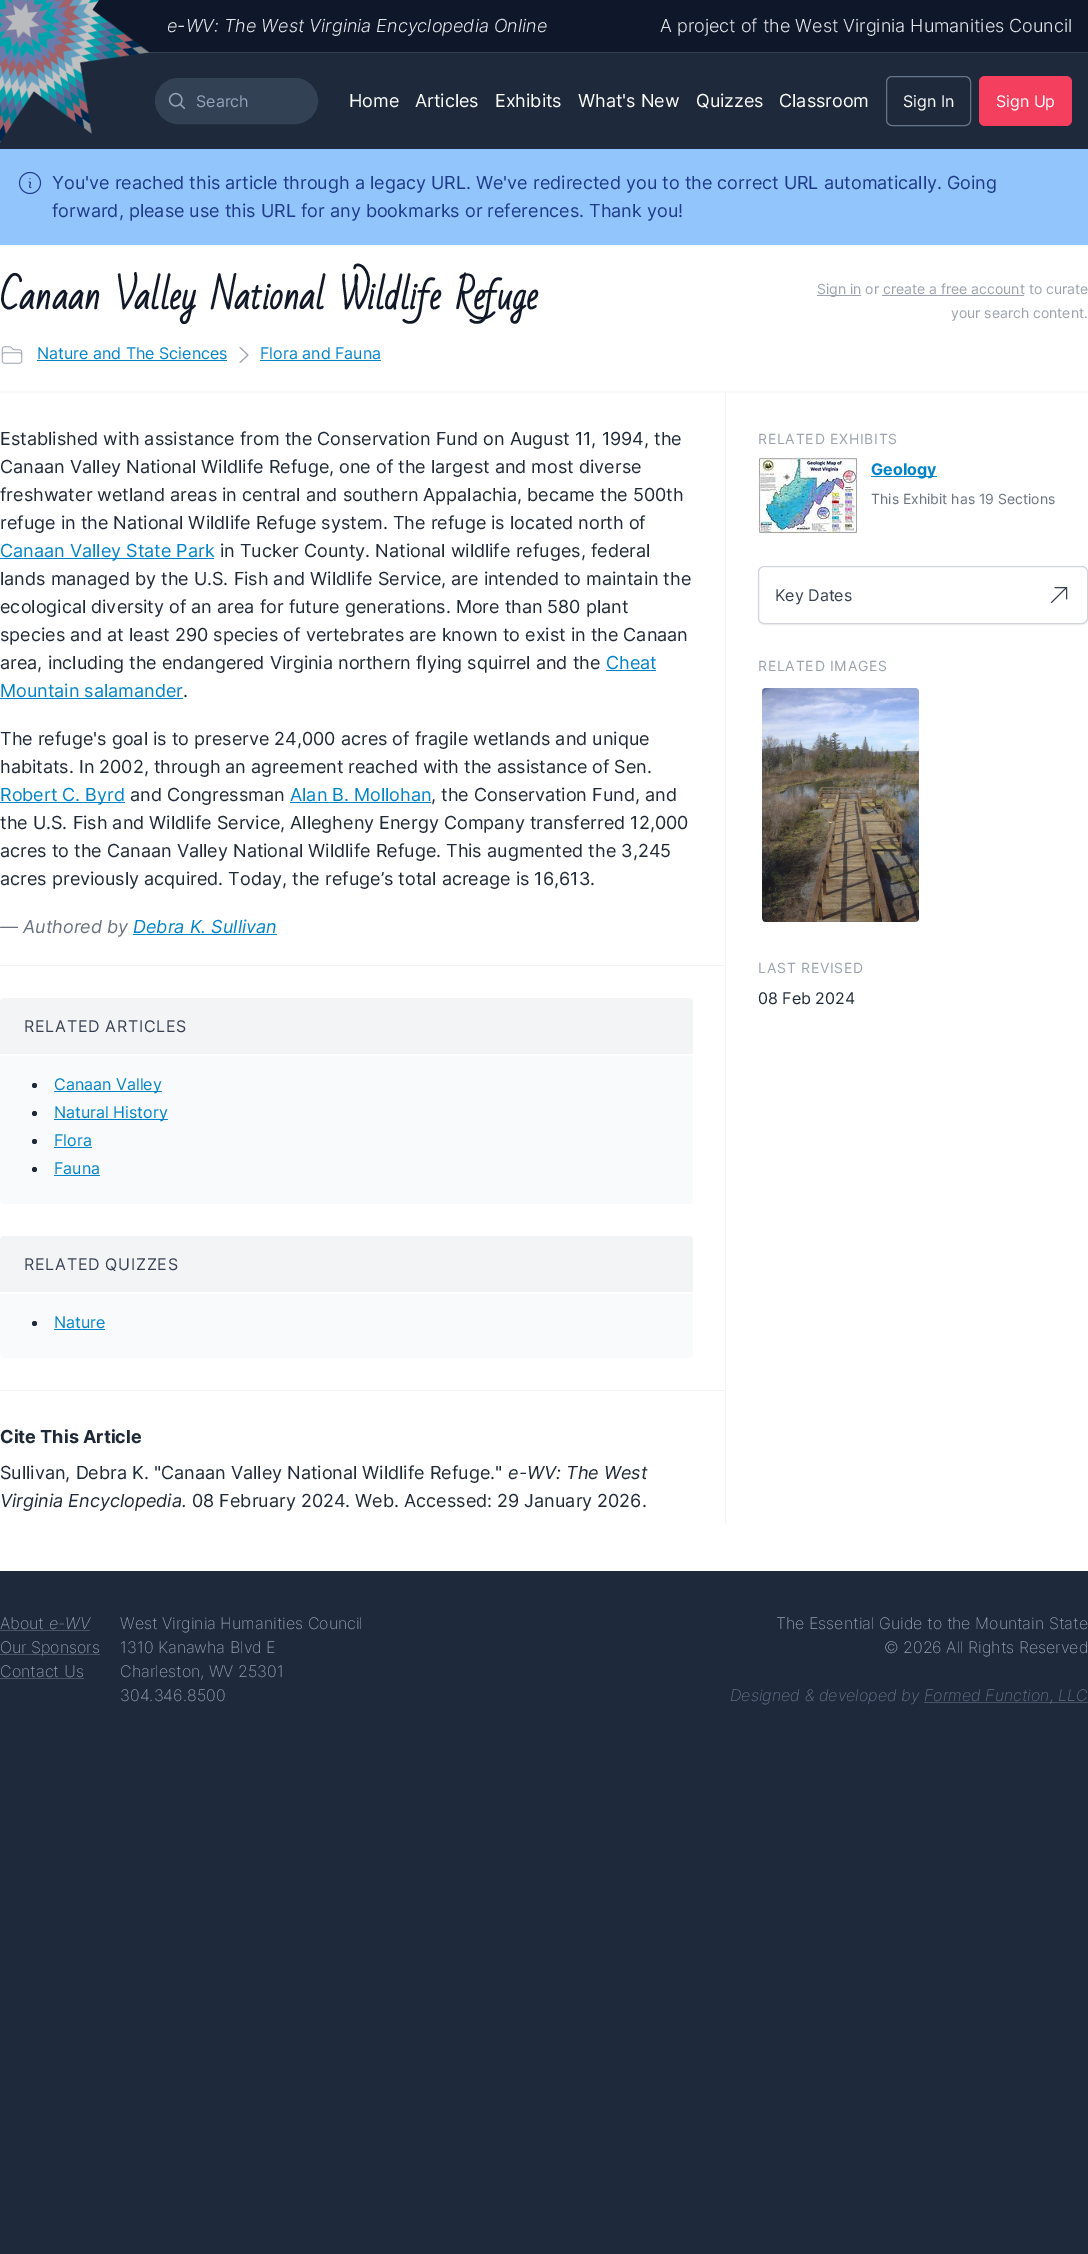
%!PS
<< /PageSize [1088 2254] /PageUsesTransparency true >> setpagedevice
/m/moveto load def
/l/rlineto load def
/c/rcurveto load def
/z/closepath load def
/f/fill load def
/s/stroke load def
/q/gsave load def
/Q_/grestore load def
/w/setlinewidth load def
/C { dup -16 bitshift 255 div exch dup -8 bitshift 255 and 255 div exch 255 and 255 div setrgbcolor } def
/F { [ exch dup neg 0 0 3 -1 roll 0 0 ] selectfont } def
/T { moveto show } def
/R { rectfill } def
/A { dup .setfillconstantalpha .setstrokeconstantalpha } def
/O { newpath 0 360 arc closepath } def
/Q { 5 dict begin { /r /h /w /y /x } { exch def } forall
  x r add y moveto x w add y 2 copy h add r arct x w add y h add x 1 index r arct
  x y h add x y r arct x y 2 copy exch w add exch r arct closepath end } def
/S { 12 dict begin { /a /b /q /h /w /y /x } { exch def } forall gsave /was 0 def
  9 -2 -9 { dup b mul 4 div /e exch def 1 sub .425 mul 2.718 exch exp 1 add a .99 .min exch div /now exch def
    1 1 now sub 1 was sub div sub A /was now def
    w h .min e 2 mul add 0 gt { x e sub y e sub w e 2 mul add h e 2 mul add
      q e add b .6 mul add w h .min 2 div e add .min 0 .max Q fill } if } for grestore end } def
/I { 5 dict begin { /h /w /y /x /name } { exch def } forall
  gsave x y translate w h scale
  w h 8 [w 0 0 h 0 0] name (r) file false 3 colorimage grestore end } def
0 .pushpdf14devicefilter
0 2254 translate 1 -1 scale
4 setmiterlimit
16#1E293B C
0 0 1088 2254 R
16#0F172A C
92 0 996 52 R
16#334155 C
141 52 947 1 R
(1.rgb) 0 0 150 143 I
/Inter-LightItalic 18 F
16#E5E7EB C
(e-WV: The West Virginia Encyclopedia Online) 167 32 T
/Inter-Light 18 F
(A project of the West Virginia Humanities Council) 660 32 T
16#334155 C
155.5 78.5 162 45 22.5 Q q f Q_
s
16#94A3B8 C
1.2 w
1 setlinecap
1 setlinejoin
184.5 108.5 m -4.5 -4.5 l 180 104 m 6 -5.5 -3 -14.5 -8.5 -8.5 c -6 5.5 3 14.5 8.5 8.5 c z s
/Inter-Regular 16 F
(Search) 196 107 T
/Inter-Regular 18 F
16#FFFFFF C
(Home) 349 107 T
(Articles) 415 107 T
(Exhibits) 495 107 T
(What's New) 578 107 T
(Quizzes) 696 107 T
(Classroom) 779 107 T
16#64748B C
1 w
0 setlinecap
0 setlinejoin
886.5 76.5 84 49 5.5 Q s
/Inter-Regular 16 F
16#FFFFFF C
(Sign In) 903 107 T
16#F43F5E C
979 76 93 50 6 Q f
16#FFFFFF C
(Sign Up) 996 107 T
16#93C5FD C
0 149 1088 96 R
(2.rgb) 18 171 24 24 I
/Inter-Regular 18 F
16#1E3A8A C
(You've reached this article through a legacy URL. We've redirected you to the correct URL automatically. Going) 52 189 T
(forward, please use this URL for any bookmarks or references. Thank you!) 52 217 T
16#FFFFFF C
0 245 1088 1326 R
16#F9FAFB C
0 391 1088 2 R
/BadScript-Bold 36 F
16#111827 C
(Canaan Valley National Wildlife Refuge) 0 309 T
(3.rgb) 1 346 22 18 I
/Inter-Regular 16 F
16#0284C7 C
(Nature and The Sciences) 37 359 T
37 360 190 1 R
16#9CA3AF C
1 setlinecap
1 setlinejoin
240 347.5 m 8 7.5 l -8 7.5 l s
16#0284C7 C
(Flora and Fauna) 260 359 T
260 360 121 1 R
16#9CA3AF C
817 295 44 1 R
/Inter-Regular 14 F
(Sign in or create a free account to curate) 817 294 T
882 295 142 1 R
(your search content.) 951 318 T
16#F3F4F6 C
0 965 725 1 R
/Inter-Regular 18 F
16#1F2937 C
(Established with assistance from the Conservation Fund on August 11, 1994, the) 0 445 T
(Canaan Valley National Wildlife Refuge, one of the largest and most diverse) 0 473 T
(freshwater wetland areas in central and southern Appalachia, became the 500th) 0 501 T
(refuge in the National Wildlife Refuge system. The refuge is located north of) 0 529 T
16#0284C7 C
0 558 214 1 R
(Canaan Valley State Park) 0 557 T
16#1F2937 C
(in Tucker County. National wildlife refuges, federal) 220 557 T
(lands managed by the U.S. Fish and Wildlife Service, are intended to maintain the) 0 585 T
(ecological diversity of an area for future generations. More than 580 plant) 0 613 T
(species and at least 290 species of vertebrates are known to exist in the Canaan) 0 641 T
(area, including the endangered Virginia northern flying squirrel and the) 0 669 T
16#0284C7 C
(Cheat) 606 669 T
606 670 50 1 R
(Mountain salamander) 0 697 T
0 698 183 1 R
16#1F2937 C
(.) 183 697 T
(The refuge's goal is to preserve 24,000 acres of fragile wetlands and unique) 0 745 T
(habitats. In 2002, through an agreement reached with the assistance of Sen.) 0 773 T
16#0284C7 C
0 802 125 1 R
(Robert C. Byrd) 0 801 T
16#1F2937 C
(and Congressman) 130 801 T
16#0284C7 C
(Alan B. Mollohan) 290 801 T
290 802 141 1 R
16#1F2937 C
(, the Conservation Fund, and) 431 801 T
(the U.S. Fish and Wildlife Service, Allegheny Energy Company transferred 12,000) 0 829 T
(acres to the Canaan Valley National Wildlife Refuge. This augmented the 3,245) 0 857 T
(acres previously acquired. Today, the refuge’s total acreage is 16,613.) 0 885 T
/Inter-Italic 18 F
16#6B7280 C
(— Authored by) 0 933 T
16#0284C7 C
(Debra K. Sullivan) 133 933 T
133 934 144 1 R
16#F9FAFB C
0 998 693 206 4 Q f
16#F3F4F6 C
4 998 m 685 0 l 2 0 4 2 4 4 c 0 52 l -693 0 l 0 -52 l 0 -2 2 -4 4 -4 c z f
16#FFFFFF C
0 1054 693 2 R
/Inter-Regular 16 F
16#374151 C
24 1032 m .75 0 (RELATED ARTICLES) ashow
16#1F2937 C
34.5 1085.5 2.5 O f
16#0284C7 C
54 1091 108 1 R
(Canaan Valley) 54 1090 T
16#1F2937 C
34.5 1113.5 2.5 O f
16#0284C7 C
54 1119 114 1 R
(Natural History) 54 1118 T
16#1F2937 C
34.5 1141.5 2.5 O f
16#0284C7 C
(Flora) 54 1146 T
54 1147 38 1 R
16#1F2937 C
34.5 1169.5 2.5 O f
16#0284C7 C
(Fauna) 54 1174 T
54 1175 46 1 R
16#F9FAFB C
0 1236 693 122 4 Q f
16#F3F4F6 C
4 1236 m 685 0 l 2 0 4 2 4 4 c 0 52 l -693 0 l 0 -52 l 0 -2 2 -4 4 -4 c z f
16#FFFFFF C
0 1292 693 2 R
16#374151 C
24 1270 m .75 0 (RELATED QUIZZES) ashow
16#1F2937 C
34.5 1323.5 2.5 O f
16#0284C7 C
(Nature) 54 1328 T
54 1329 51 1 R
16#F3F4F6 C
0 1390 725 1 R
/Inter-Bold 18 F
16#1F2937 C
(Cite This Article) 0 1443 T
/Inter-Regular 18 F
(Sullivan, Debra K. "Canaan Valley National Wildlife Refuge.") 0 1479 T
/Inter-Italic 18 F
(e-WV: The West) 508 1479 T
(Virginia Encyclopedia.) 0 1507 T
/Inter-Regular 18 F
(08 February 2024. Web. Accessed: 29 January 2026.) 192 1507 T
16#F3F4F6 C
725 393 1 1130 R
/Inter-Regular 14 F
16#9CA3AF C
758 444 m .75 0 (RELATED EXHIBITS) ashow
(4.rgb) 758 457 100 77 I
16#0284C7 C
871 476 66 1 R
/Inter-Bold 16 F
(Geology) 871 475 T
/Inter-Regular 14 F
16#6B7280 C
(This Exhibit has 19 Sections) 871 504 T
16#000000 C
758 567 330 58 6 1 .05 S
16#FFFFFF C
758.5 566.5 329 57 5.5 Q q f Q_
16#D1D5DB C
0 setlinecap
0 setlinejoin
s
/Inter-Regular 16 F
16#374151 C
(Key Dates) 775 601 T
1 setlinecap
1 setlinejoin
1051.5 602.5 m 15 -15 l 1066.5 587.5 m -11.5 0 l 1066.5 587.5 m 0 11.5 l s
/Inter-Regular 14 F
16#9CA3AF C
758 671 m .75 0 (RELATED IMAGES) ashow
(5.rgb) 762 688 157 234 I
758 973 m .75 0 (LAST REVISED) ashow
/Inter-Regular 16 F
16#1F2937 C
(08 Feb 2024) 758 1004 T
/Inter-ExtraLight 16 F
16#94A3B8 C
(About) 0 1629 T
16#475569 C
0 1630 90 1 R
/Inter-ExtraLightItalic 16 F
16#94A3B8 C
(e-WV) 49 1629 T
16#475569 C
0 1654 100 1 R
/Inter-ExtraLight 16 F
16#94A3B8 C
(Our Sponsors) 0 1653 T
(Contact Us) 0 1677 T
16#475569 C
0 1678 84 1 R
16#94A3B8 C
(West Virginia Humanities Council) 120 1629 T
(1310 Kanawha Blvd E) 120 1653 T
(Charleston, WV 25301) 120 1677 T
(304.346.8500) 120 1701 T
(The Essential Guide to the Mountain State) 776 1629 T
(© 2026 All Rights Reserved) 884 1653 T
/Inter-ExtraLightItalic 16 F
16#64748B C
(Designed & developed by) 730 1701 T
16#475569 C
924 1702 164 1 R
16#64748B C
(Formed Function, LLC) 924 1701 T
.poppdf14devicefilter showpage
